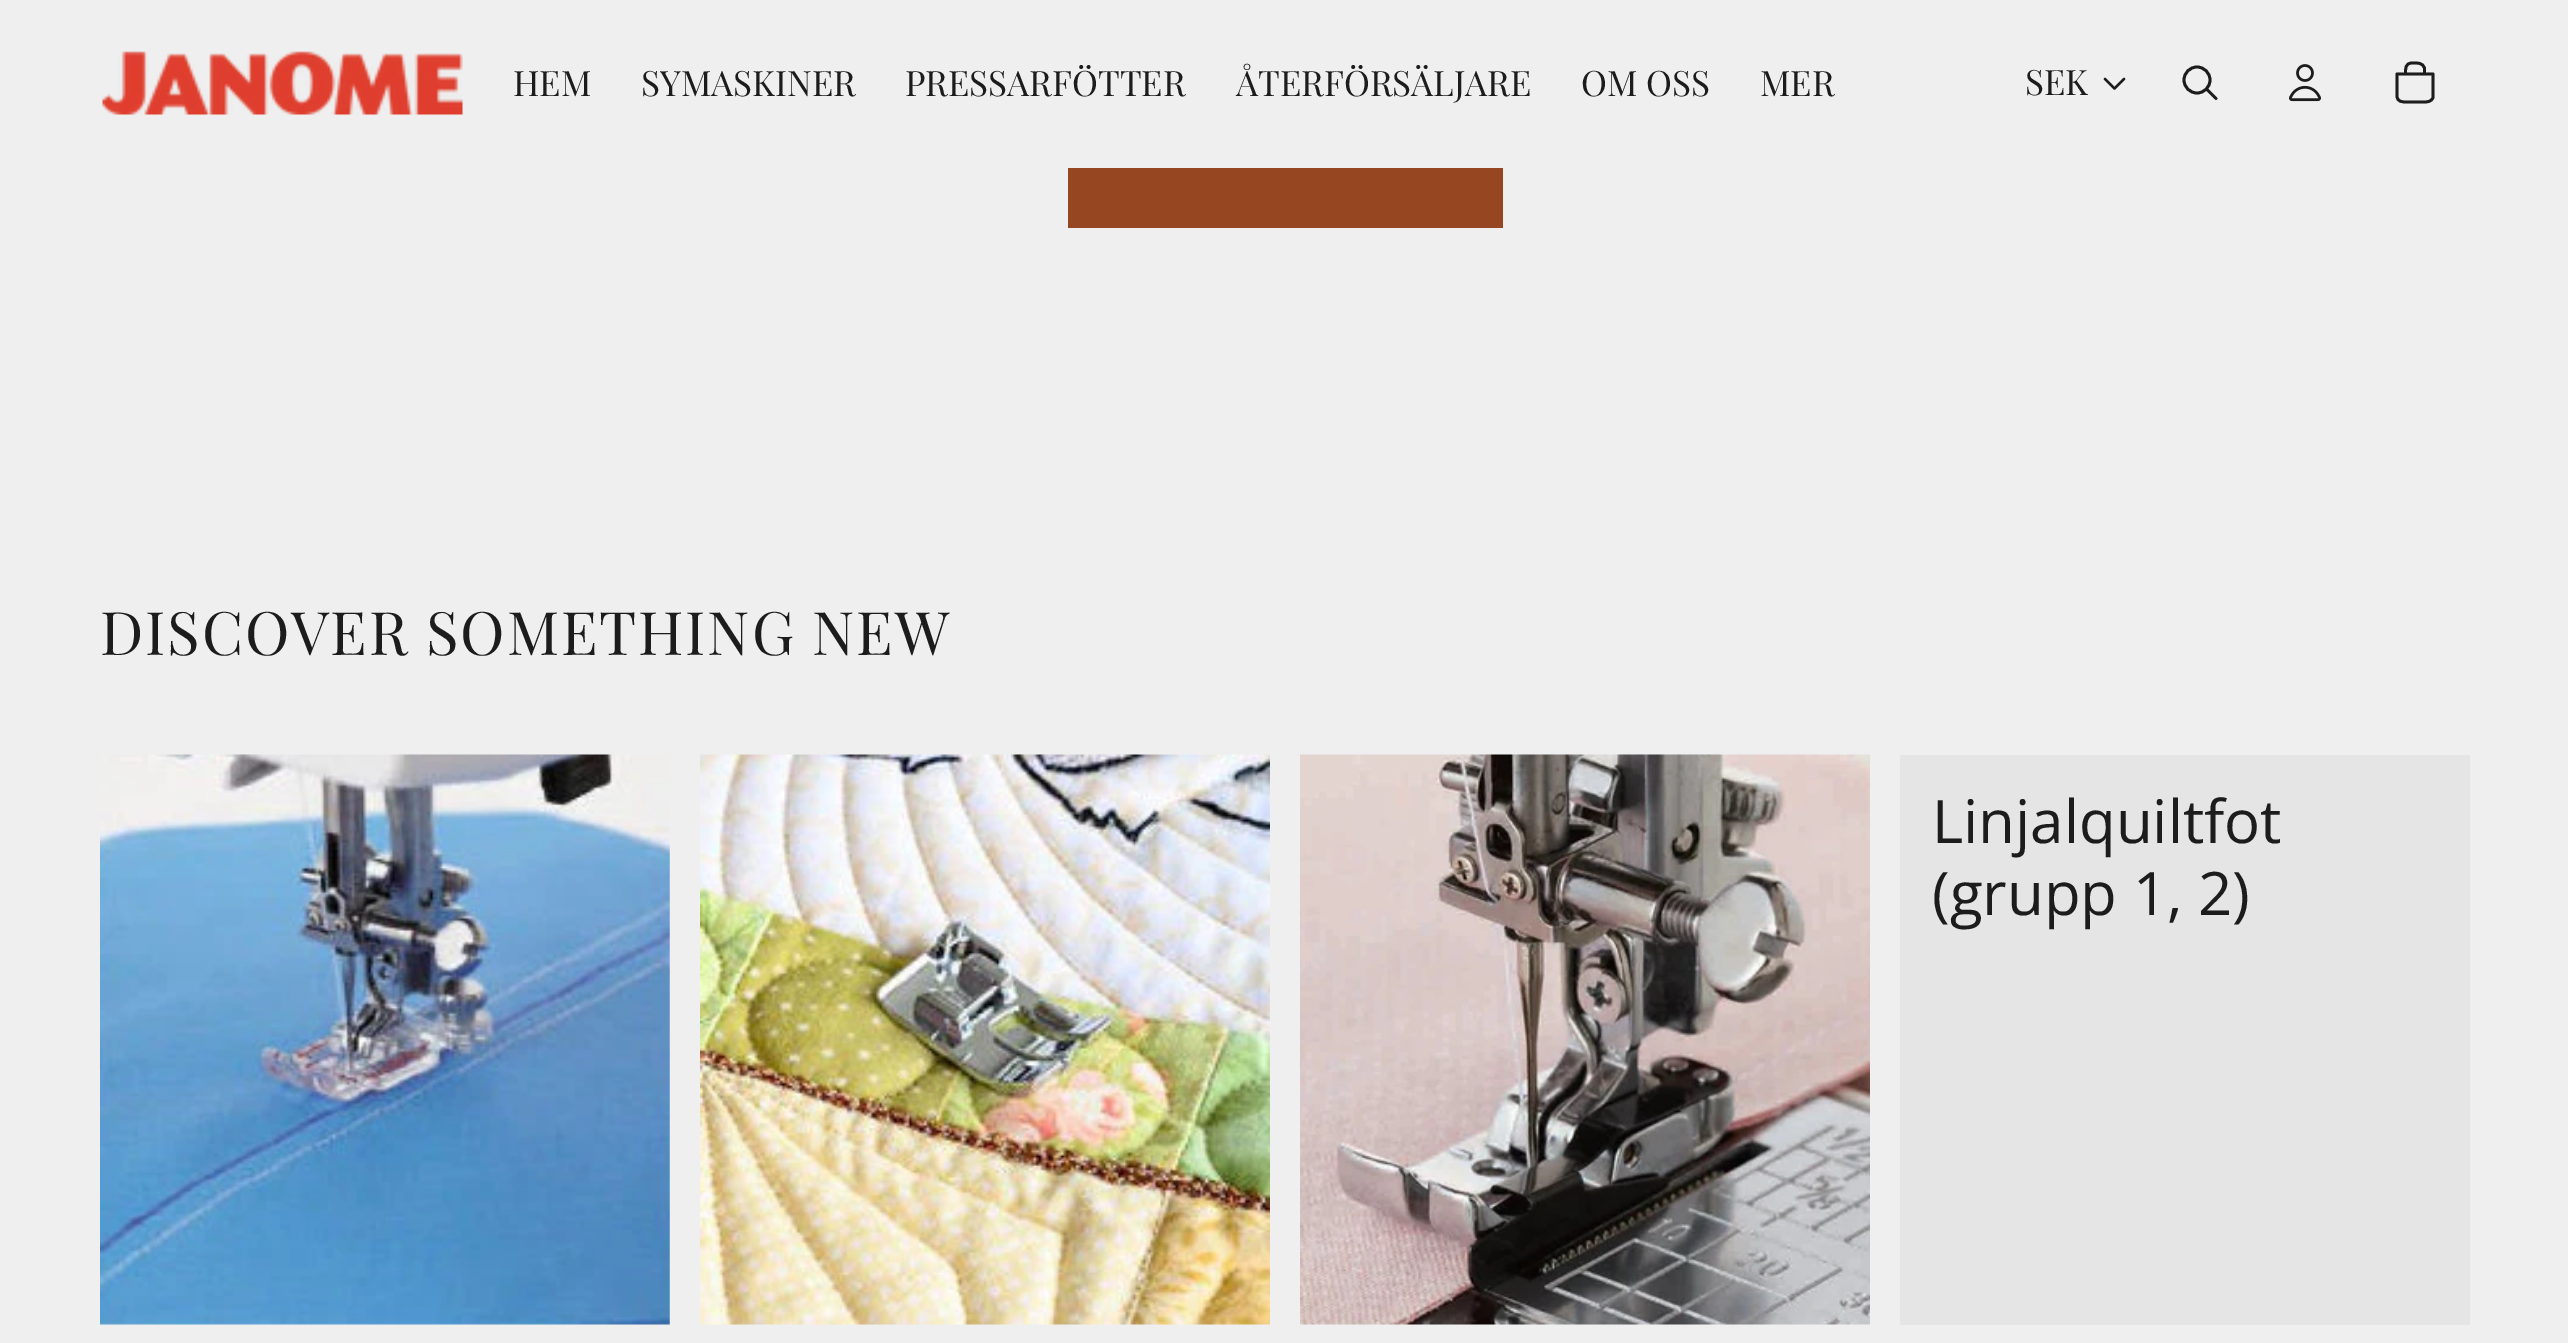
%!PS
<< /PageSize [2568 1343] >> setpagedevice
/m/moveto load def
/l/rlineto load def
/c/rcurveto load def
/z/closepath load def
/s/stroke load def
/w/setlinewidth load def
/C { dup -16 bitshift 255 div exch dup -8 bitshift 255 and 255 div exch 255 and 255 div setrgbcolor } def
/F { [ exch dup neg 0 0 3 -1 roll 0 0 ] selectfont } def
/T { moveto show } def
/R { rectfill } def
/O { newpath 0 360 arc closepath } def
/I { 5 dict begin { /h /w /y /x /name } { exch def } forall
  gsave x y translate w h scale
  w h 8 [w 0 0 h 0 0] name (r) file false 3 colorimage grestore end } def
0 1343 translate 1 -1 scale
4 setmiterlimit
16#EFEFEF C
0 0 2568 1343 R
(1.rgb) 102 51 361 64 I
/PlayfairDisplay-Regular 35 F
16#1C1C1C C
(HEM) 513 96 T
(SYMASKINER) 641 96 T
(PRESSARFÖTTER) 905 96 T
(ÅTERFÖRSÄLJARE) 1236 96 T
(OM OSS) 1581 96 T
(MER) 1760 96 T
(SEK) 2025 95 T
2.4 w
1 setlinecap
1 setlinejoin
2124 79 m -9.5 9.5 l -9.5 -9.5 l s
2.8 w
0 setlinecap
0 setlinejoin
2197 80 13 O s
1 setlinecap
1 setlinejoin
2207 89.5 m 9 9 l s
(2.rgb) 2289 64 32 38 I
2397 74 m 36 0 l 0 23.5 l -1.5 4.5 -6 4.5 -10 4.5 c -16 0 l -4.5 0 -10 0 -10 -6 c z 2411.5 63 m 5 0 11.5 -1 13 5.5 c 0 5.5 l -19 0 l 0 -5 -.5 -11 6.5 -11 c s
16#964621 C
1068 168 435 60 R
/PlayfairDisplay-Regular 60 F
16#1C1C1C C
100 655 m 1.8 0 (DISCOVER SOMETHING NEW) ashow
(3.rgb) 100 754 570 571 I
(4.rgb) 700 754 570 571 I
(5.rgb) 1300 754 570 571 I
16#E5E5E5 C
1900 755 570 570 R
/OpenSans-Regular 60 F
16#1C1C1C C
(Linjalquiltfot) 1932 843 T
(\(grupp 1, 2\)) 1932 915 T
showpage
